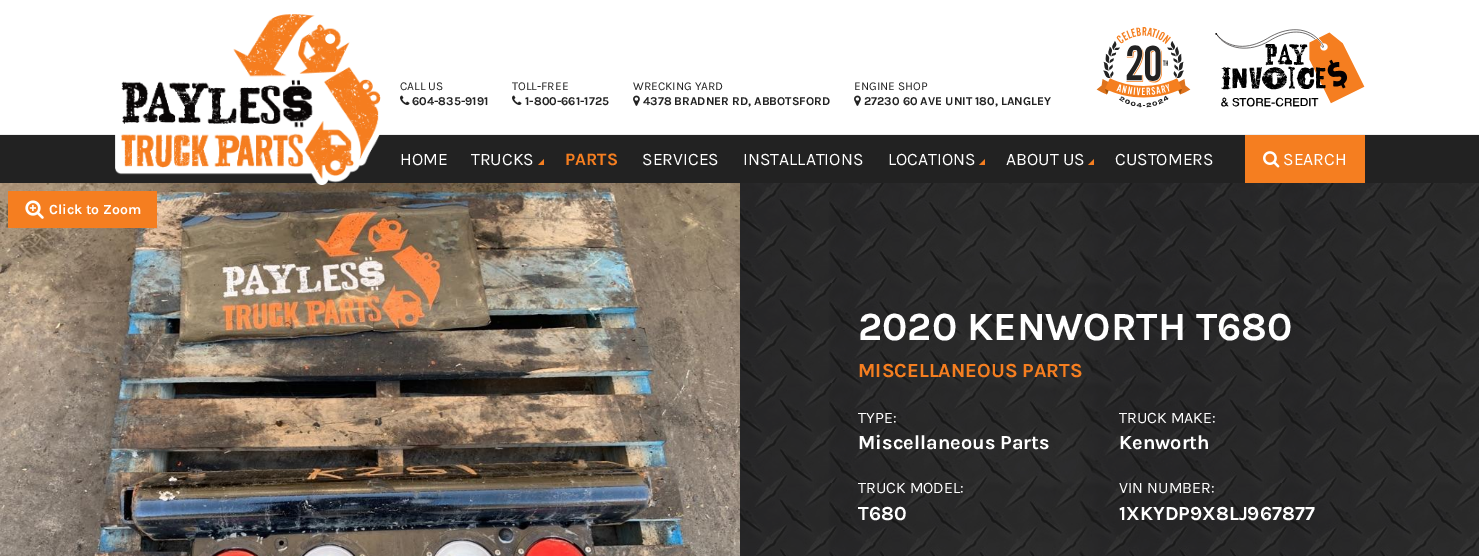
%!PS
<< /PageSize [1479 556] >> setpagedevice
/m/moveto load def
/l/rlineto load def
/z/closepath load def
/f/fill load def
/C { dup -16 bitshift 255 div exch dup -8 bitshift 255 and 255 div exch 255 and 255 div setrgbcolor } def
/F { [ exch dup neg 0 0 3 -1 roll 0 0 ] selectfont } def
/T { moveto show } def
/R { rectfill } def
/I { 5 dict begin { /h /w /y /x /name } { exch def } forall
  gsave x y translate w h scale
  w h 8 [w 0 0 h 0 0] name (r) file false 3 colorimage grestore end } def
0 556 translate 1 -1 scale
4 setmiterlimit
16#FFFFFF C
0 0 1479 556 R
16#222222 C
0 135 1479 48 R
16#EEEEEE C
0 134 1479 1 R
(7.rgb) 0 183 740 373 I
(1.rgb) 115 14 266 171 I
/Karla-Regular 12 F
16#222222 C
(CALL US) 400 90 T
(2.rgb) 400 95 10 10 I
/Karla-Bold 12 F
(604-835-9191) 412 105 T
/Karla-Regular 12 F
(TOLL-FREE) 512 90 T
(2.rgb) 512 95 10 10 I
/Karla-Bold 12 F
(1-800-661-1725) 525 105 T
/Karla-Regular 12 F
(WRECKING YARD) 633 90 T
(3.rgb) 633 95 7 11 I
/Karla-Bold 12 F
(4378 BRADNER RD, ABBOTSFORD) 643 105 T
/Karla-Regular 12 F
(ENGINE SHOP) 854 90 T
(3.rgb) 854 95 7 11 I
/Karla-Bold 12 F
(27230 60 AVE UNIT 180, LANGLEY) 864 105 T
(4.rgb) 1096 27 95 81 I
(5.rgb) 1215 29 150 78 I
/Karla-Regular 17.5 F
16#FFFFFF C
(HOME) 400 165 T
(TRUCKS) 471 165 T
16#F57E20 C
544 165 m -6 0 l 6 -6 l z f
/Karla-Bold 17.5 F
(PARTS) 565 165 T
/Karla-Regular 17.5 F
16#FFFFFF C
(SERVICES) 642 165 T
(INSTALLATIONS) 743 165 T
(LOCATIONS) 888 165 T
16#F57E20 C
985 165 m -6 0 l 6 -6 l z f
16#FFFFFF C
(ABOUT US) 1006 165 T
16#F57E20 C
1094 165 m -6 0 l 6 -6 l z f
16#FFFFFF C
(CUSTOMERS) 1115 165 T
16#F57E20 C
1245 135 120 48 R
(6.rgb) 1263 151 17 17 I
16#FFFFFF C
(SEARCH) 1283 165 T
16#F57E20 C
8 191 149 37 R
(8.rgb) 25 200 19 19 I
/Karla-Bold 14 F
16#FFFFFF C
(Click to Zoom) 49 214 T
(9.rgb) 740 183 739 373 I
/Karla-Bold 40 F
(2020 KENWORTH T680) 858 340 T
/Karla-Bold 20 F
16#F57E20 C
(MISCELLANEOUS PARTS) 858 377 T
/Karla-Regular 16 F
16#FFFFFF C
(TYPE:) 858 423 T
/Karla-Bold 20 F
(Miscellaneous Parts) 858 449 T
/Karla-Regular 16 F
(TRUCK MAKE:) 1119 423 T
/Karla-Bold 20 F
(Kenworth) 1119 449 T
/Karla-Regular 16 F
(TRUCK MODEL:) 858 493 T
/Karla-Bold 20 F
(T680) 858 520 T
/Karla-Regular 16 F
(VIN NUMBER:) 1119 493 T
/Karla-Bold 20 F
(1XKYDP9X8LJ967877) 1119 520 T
showpage
